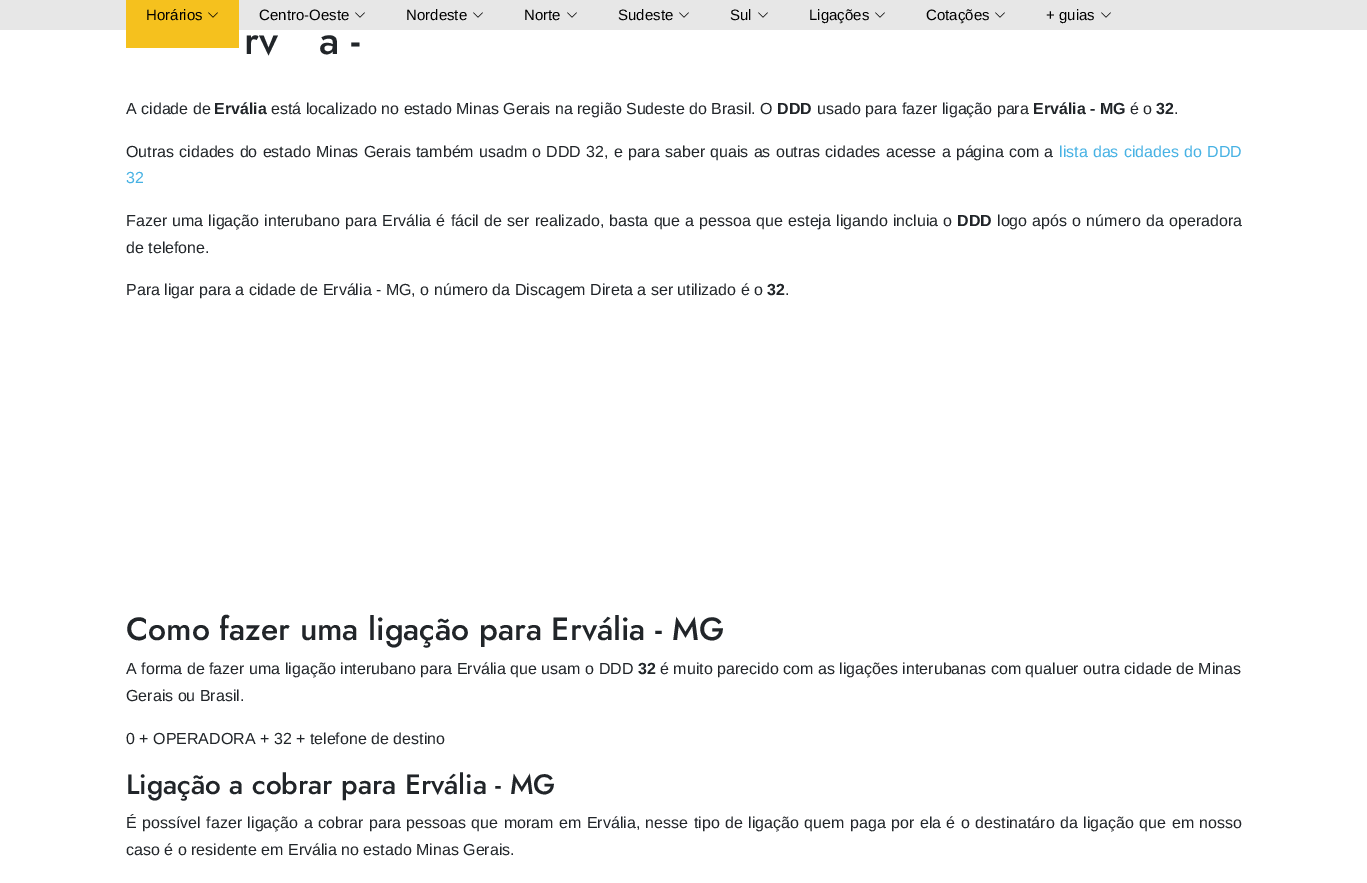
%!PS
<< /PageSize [1367 883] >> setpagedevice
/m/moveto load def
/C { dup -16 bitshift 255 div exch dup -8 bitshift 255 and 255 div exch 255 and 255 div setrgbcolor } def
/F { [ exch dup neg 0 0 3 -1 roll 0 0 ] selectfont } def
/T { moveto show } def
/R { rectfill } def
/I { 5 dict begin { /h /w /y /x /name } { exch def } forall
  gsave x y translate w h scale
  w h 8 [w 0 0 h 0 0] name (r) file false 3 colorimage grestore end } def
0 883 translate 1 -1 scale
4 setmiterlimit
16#FFFFFF C
0 0 1367 883 R
16#E7E7E7 C
0 0 1367 30 R
16#F5C11E C
126 0 113 48 R
/LiberationSans-Regular 15 F
16#000000 C
(Horários) 146 20 T
(1.rgb) 208 12 10 6 I
(Centro-Oeste) 259 20 T
(2.rgb) 355 12 10 6 I
(Nordeste) 406 20 T
(2.rgb) 473 12 10 6 I
(Norte) 524 20 T
(2.rgb) 567 12 10 6 I
(Sudeste) 618 20 T
(2.rgb) 679 12 10 6 I
(Sul) 730 20 T
(2.rgb) 758 12 10 6 I
(Ligações) 809 20 T
(2.rgb) 875 12 10 6 I
(Cotações) 926 20 T
(2.rgb) 995 12 10 6 I
(+ guias) 1046 20 T
(2.rgb) 1101 12 10 6 I
/Jost-Medium 40 F
16#212529 C
(rv) 244 54 T
(a -) 319 54 T
/LiberationSans-Regular 16 F
(A cidade de) 126 114 T
/LiberationSans-Bold 16 F
(Ervália) 214 114 T
/LiberationSans-Regular 16 F
(está localizado no estado Minas Gerais na região Sudeste do Brasil. O) 271 114 T
/LiberationSans-Bold 16 F
(DDD) 777 114 T
/LiberationSans-Regular 16 F
(usado para fazer ligação para) 817 114 T
/LiberationSans-Bold 16 F
(Ervália - MG) 1033 114 T
/LiberationSans-Regular 16 F
(é o) 1130 114 T
/LiberationSans-Bold 16 F
(32) 1156 114 T
/LiberationSans-Regular 16 F
(.) 1174 114 T
126 157 m .75 0 32 (Outras cidades do estado Minas Gerais também usadm o DDD 32, e para saber quais as outras cidades acesse a página com a) widthshow
16#47B2E4 C
1059 157 m .75 0 32 (lista das cidades do DDD) widthshow
(32) 126 183 T
16#212529 C
126 226 m .75 0 32 (Fazer uma ligação interubano para Ervália é fácil de ser realizado, basta que a pessoa que esteja ligando incluia o) widthshow
/LiberationSans-Bold 16 F
(DDD) 957 226 T
/LiberationSans-Regular 16 F
997 226 m .75 0 32 (logo após o número da operadora) widthshow
(de telefone.) 126 253 T
(Para ligar para a cidade de Ervália - MG, o número da Discagem Direta a ser utilizado é o) 126 295 T
/LiberationSans-Bold 16 F
(32) 767 295 T
/LiberationSans-Regular 16 F
(.) 785 295 T
/Jost-Medium 32 F
(Como fazer uma ligação para Ervália - MG) 126 640 T
/LiberationSans-Regular 16 F
126 674 m .1 0 32 (A forma de fazer uma ligação interubano para Ervália que usam o DDD) widthshow
/LiberationSans-Bold 16 F
(32) 638 674 T
/LiberationSans-Regular 16 F
660 674 m .1 0 32 (é muito parecido com as ligações interubanas com qualuer outra cidade de Minas) widthshow
(Gerais ou Brasil.) 126 701 T
(0 + OPERADORA + 32 + telefone de destino) 126 744 T
/Jost-Medium 28 F
(Ligação a cobrar para Ervália - MG) 126 794 T
/LiberationSans-Regular 16 F
126 828 m 1.05 0 32 (É possível fazer ligação a cobrar para pessoas que moram em Ervália, nesse tipo de ligação quem paga por ela é o destinatáro da ligação que em nosso) widthshow
(caso é o residente em Ervália no estado Minas Gerais.) 126 855 T
showpage
